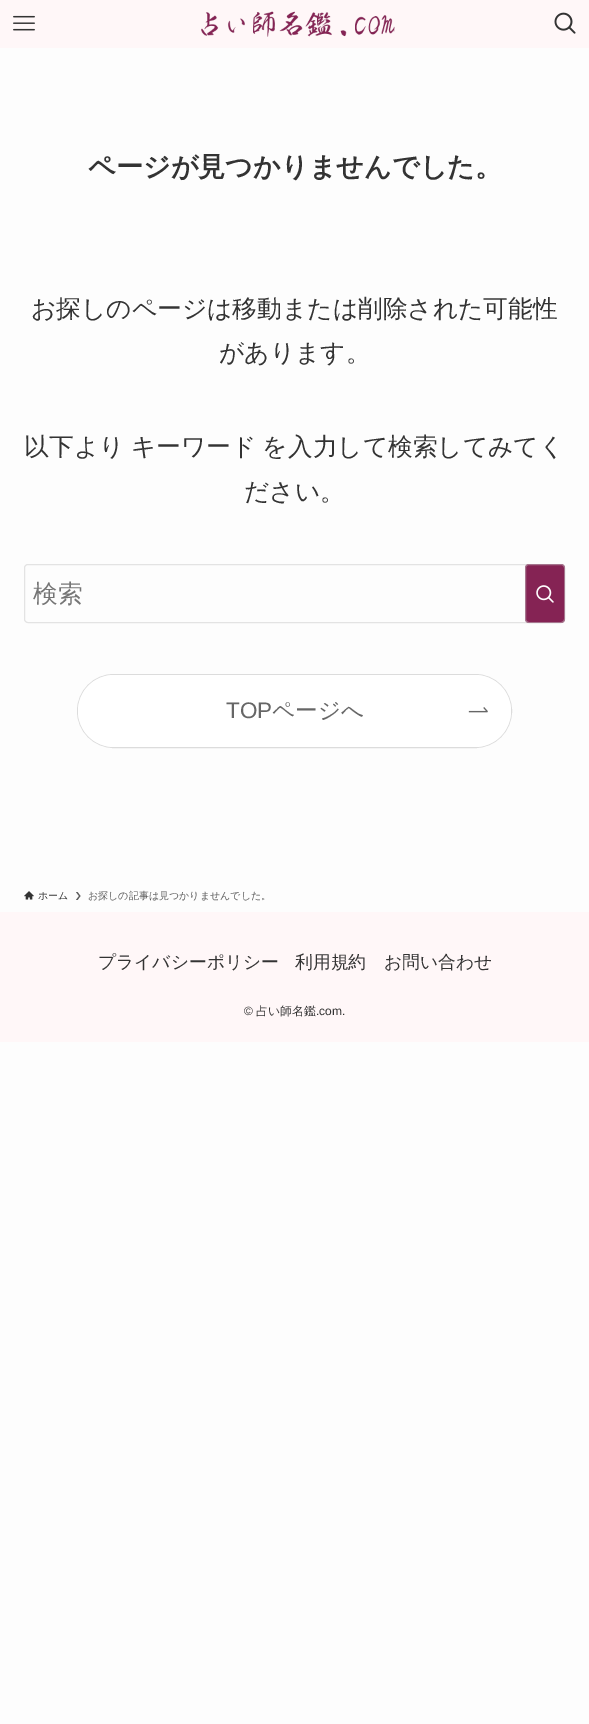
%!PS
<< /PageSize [589 1724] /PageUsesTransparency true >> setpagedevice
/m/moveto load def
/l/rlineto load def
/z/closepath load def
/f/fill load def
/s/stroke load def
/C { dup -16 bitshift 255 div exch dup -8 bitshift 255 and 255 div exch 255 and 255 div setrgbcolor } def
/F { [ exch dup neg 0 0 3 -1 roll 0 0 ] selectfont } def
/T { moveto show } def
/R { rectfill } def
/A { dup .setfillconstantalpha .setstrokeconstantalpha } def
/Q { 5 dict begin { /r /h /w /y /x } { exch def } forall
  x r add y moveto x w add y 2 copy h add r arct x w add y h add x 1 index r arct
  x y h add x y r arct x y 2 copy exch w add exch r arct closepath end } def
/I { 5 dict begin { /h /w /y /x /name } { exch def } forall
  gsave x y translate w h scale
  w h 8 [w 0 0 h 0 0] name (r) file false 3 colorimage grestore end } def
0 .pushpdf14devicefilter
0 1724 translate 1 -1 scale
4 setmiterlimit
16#FDFDFD C
0 0 589 1724 R
16#FFF7F8 C
0 0 589 48 R
(1.rgb) 13 15 22 16 I
(2.rgb) 201 11 194 26 I
(3.rgb) 554 12 22 22 I
/WenQuanYiZenHei-Bold 27.1 F
16#333333 C
(ページが見つかりませんでした。) 88 176 T
/WenQuanYiZenHei-Medium 24.75 F
(お探しのページは移動または削除された可能性) 31 317 T
(があります。) 219 361 T
24 455 m -1 0 32 (以下より キーワード を入力して検索してみてく) widthshow
(ださい。) 244 500 T
16#E3E3E3 C
24.5 564.5 540 58 3.5 Q s
16#757575 C
(検索) 33 602 T
16#852354 C
525 564 40 59 4 Q f
0.5 A
16#C7C7C7 C
525.5 564.5 39 58 3.5 Q s
1 A
(4.rgb) 536 585 18 18 I
16#DCDCDC C
77.5 674.5 434 73 36.5 Q s
16#FFFFFF C
78 675 433 72 36 Q f
/LiberationSans-Regular 22.5 F
16#666666 C
(TOP) 226 718 T
/WenQuanYiZenHei-Medium 22.5 F
(ページへ) 272 718 T
(5.rgb) 468 707 20 6 I
(6.rgb) 24 891 10 9 I
/WenQuanYiZenHei-Medium 10 F
16#333333 C
(ホーム) 38 899 T
16#5B5B5B C
77.5 892 m -1.5 0 l 3 4 l -3 4 l 1.5 0 l 3 -4 l z f
(お探しの記事は見つかりませんでした。) 88 899 T
16#FFF7F8 C
0 912 589 130 R
/WenQuanYiZenHei-Medium 17.75 F
16#333333 C
(プライバシーポリシー) 98 968 T
(利用規約) 295 968 T
(お問い合わせ) 384 968 T
/LiberationSans-Regular 12 F
(©) 244 1015 T
/WenQuanYiZenHei-Medium 12 F
(占い師名鑑) 256 1015 T
/LiberationSans-Regular 12 F
(.com.) 316 1015 T
.poppdf14devicefilter showpage
